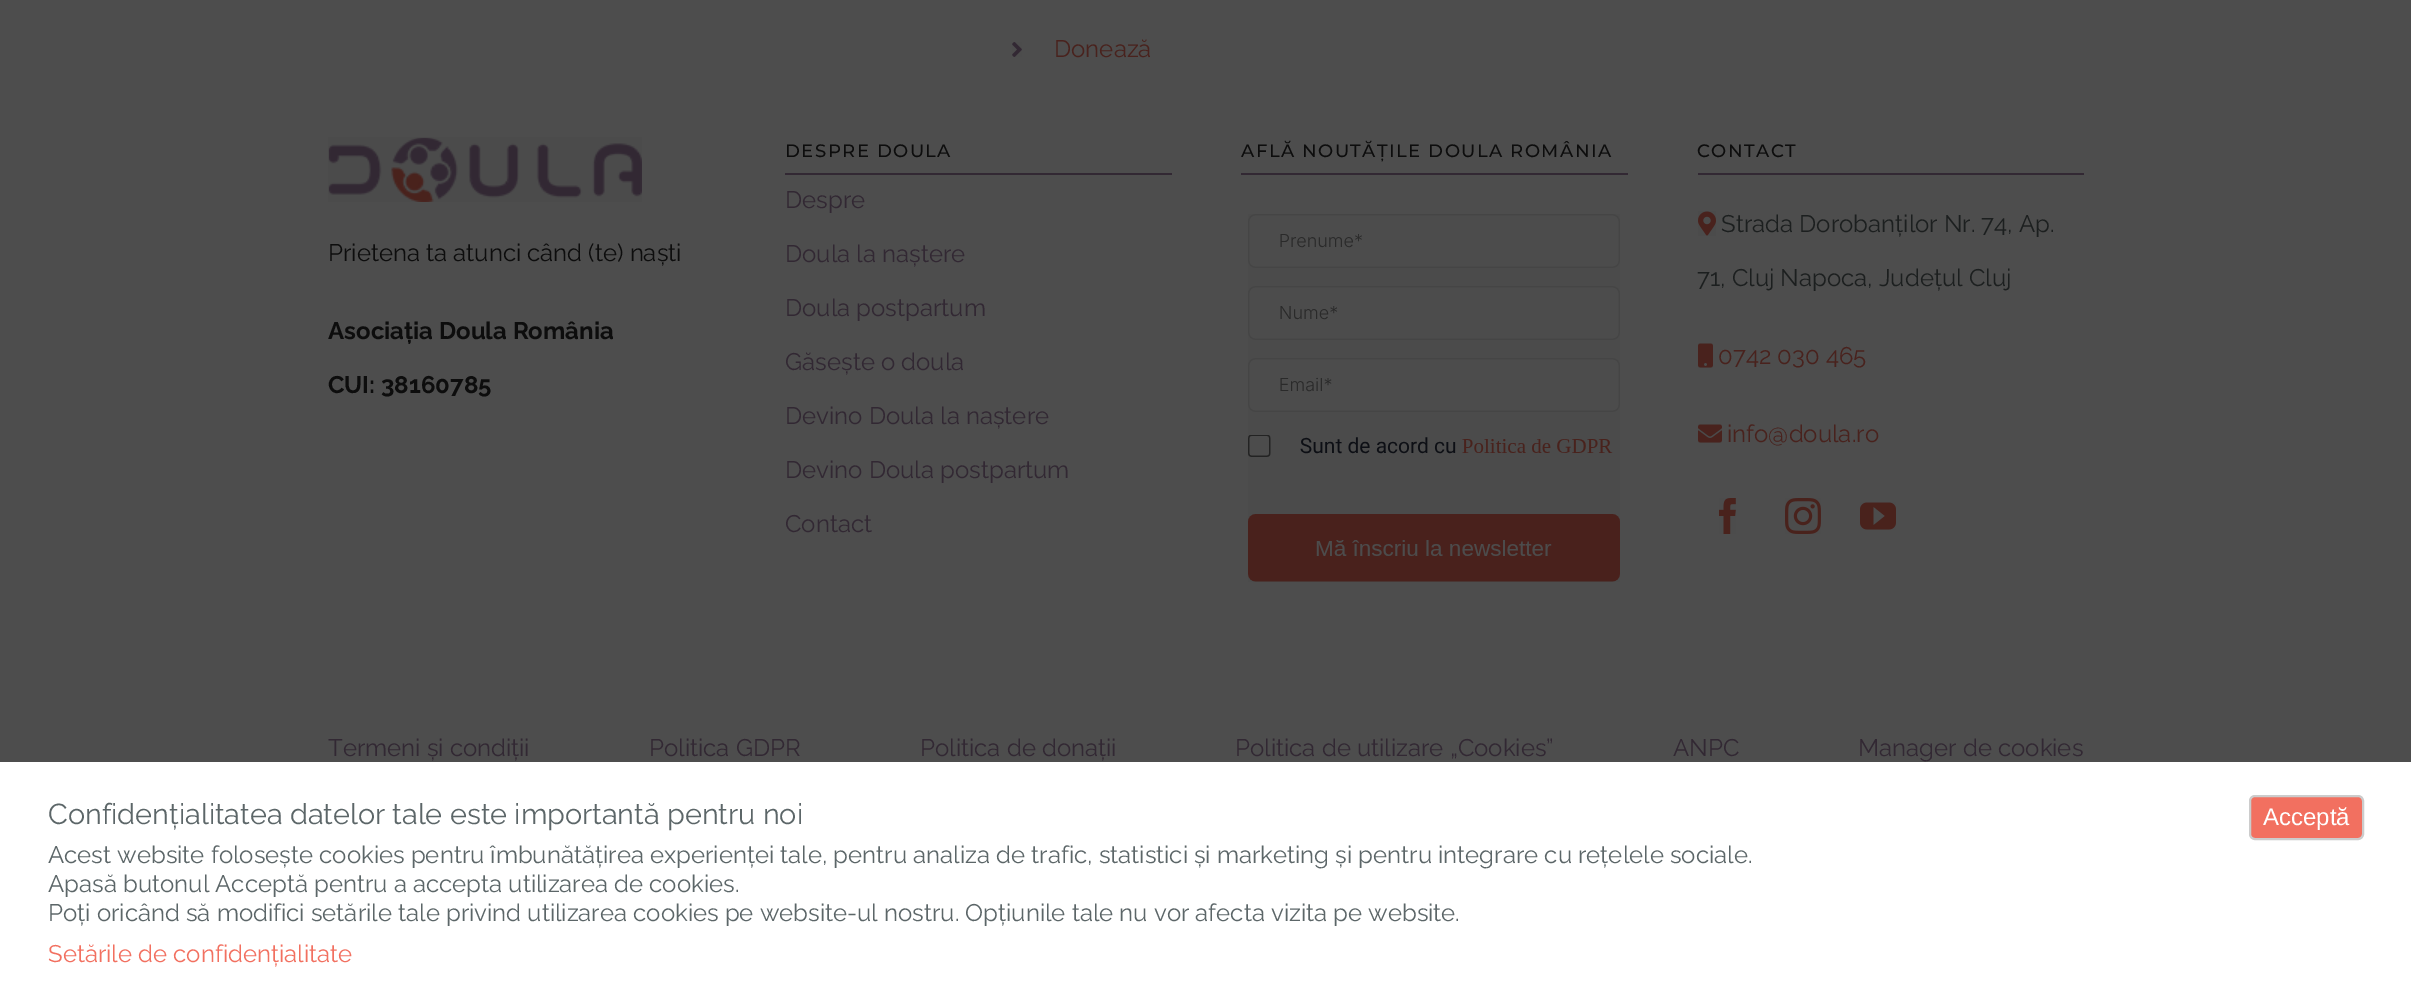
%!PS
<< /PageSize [2411 1005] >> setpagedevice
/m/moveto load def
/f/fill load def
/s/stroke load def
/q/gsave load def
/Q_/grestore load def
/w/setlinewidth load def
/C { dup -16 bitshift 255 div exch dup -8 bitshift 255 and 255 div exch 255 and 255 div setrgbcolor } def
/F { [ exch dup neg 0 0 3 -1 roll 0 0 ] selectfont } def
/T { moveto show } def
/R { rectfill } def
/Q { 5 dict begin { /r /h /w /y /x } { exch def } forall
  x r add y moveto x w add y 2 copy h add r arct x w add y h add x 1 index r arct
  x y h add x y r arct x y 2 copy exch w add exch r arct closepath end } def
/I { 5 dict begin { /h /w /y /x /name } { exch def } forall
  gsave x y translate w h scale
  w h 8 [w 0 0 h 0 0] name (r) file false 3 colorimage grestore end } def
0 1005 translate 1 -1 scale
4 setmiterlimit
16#4D4D4D C
0 0 2411 1005 R
(1.rgb) 1012 42 10 15 I
/Raleway-Regular 24 F
16#49221D C
(Donează) 1054 57 T
(2.rgb) 328 137 314 65 I
16#0D0D0D C
(Prietena ta atunci când \(te\) naști) 328 261 T
/Raleway-Bold 24 F
(Asociația Doula România) 328 339 T
(CUI: 38160785) 328 393 T
/Montserrat-Thin 18 F
785 157 m 1.5 0 (DESPRE DOULA) ashow
16#322833 C
785 173 387 2 R
/Raleway-Regular 24 F
(Despre) 785 208 T
(Doula la naștere) 785 262 T
(Doula postpartum) 785 316 T
(Găsește o doula) 785 370 T
(Devino Doula la naștere) 785 424 T
(Devino Doula postpartum) 785 478 T
(Contact) 785 532 T
/Montserrat-Thin 18 F
16#0D0D0D C
1241 157 m 1.5 0 (AFLĂ NOUTĂȚILE DOULA ROMÂNIA) ashow
16#322833 C
1241 173 387 2 R
(3.rgb) 1248 214 372 368 I
16#0D0D0D C
1697 157 m 1.5 0 (CONTACT) ashow
16#322833 C
1698 173 386 2 R
(4.rgb) 1698 211 18 25 I
/Raleway-Regular 24 F
16#1C1F1F C
(Strada Dorobanților Nr. 74, Ap.) 1721 232 T
(71, Cluj Napoca, Județul Cluj) 1697 286 T
(5.rgb) 1698 343 15 25 I
16#49221D C
(0742 030 465) 1718 364 T
(6.rgb) 1698 424 24 19 I
(info@doula.ro) 1727 442 T
(7.rgb) 1719 498 17 36 I
(8.rgb) 1785 498 36 36 I
(9.rgb) 1860 502 36 28 I
16#322833 C
(Termeni și condiții) 328 756 T
(Politica GDPR) 649 756 T
(Politica de donații) 920 756 T
(Politica de utilizare „Cookies”) 1235 756 T
(ANPC) 1673 756 T
(Manager de cookies) 1858 756 T
16#FFFFFF C
0 762 2411 243 R
/Raleway-Regular 28.8 F
16#5C6668 C
(Confidențialitatea datelor tale este importantă pentru noi) 48 824 T
/Raleway-Regular 24 F
(Acest website folosește cookies pentru îmbunătățirea experienței tale, pentru analiza de trafic, statistici și marketing și pentru integrare cu rețelele sociale.) 48 863 T
(Apasă butonul Acceptă pentru a accepta utilizarea de cookies.) 48 892 T
(Poți oricând să modifici setările tale privind utilizarea cookies pe website-ul nostru. Opțiunile tale nu vor afecta vizita pe website.) 48 921 T
16#F27060 C
(Setările de confidențialitate) 48 962 T
2250 796 113 43 5 Q q f Q_
16#CCCCCC C
2 w
s
/LiberationSans-Regular 24 F
16#FFFFFF C
(Acceptă) 2263 825 T
showpage
